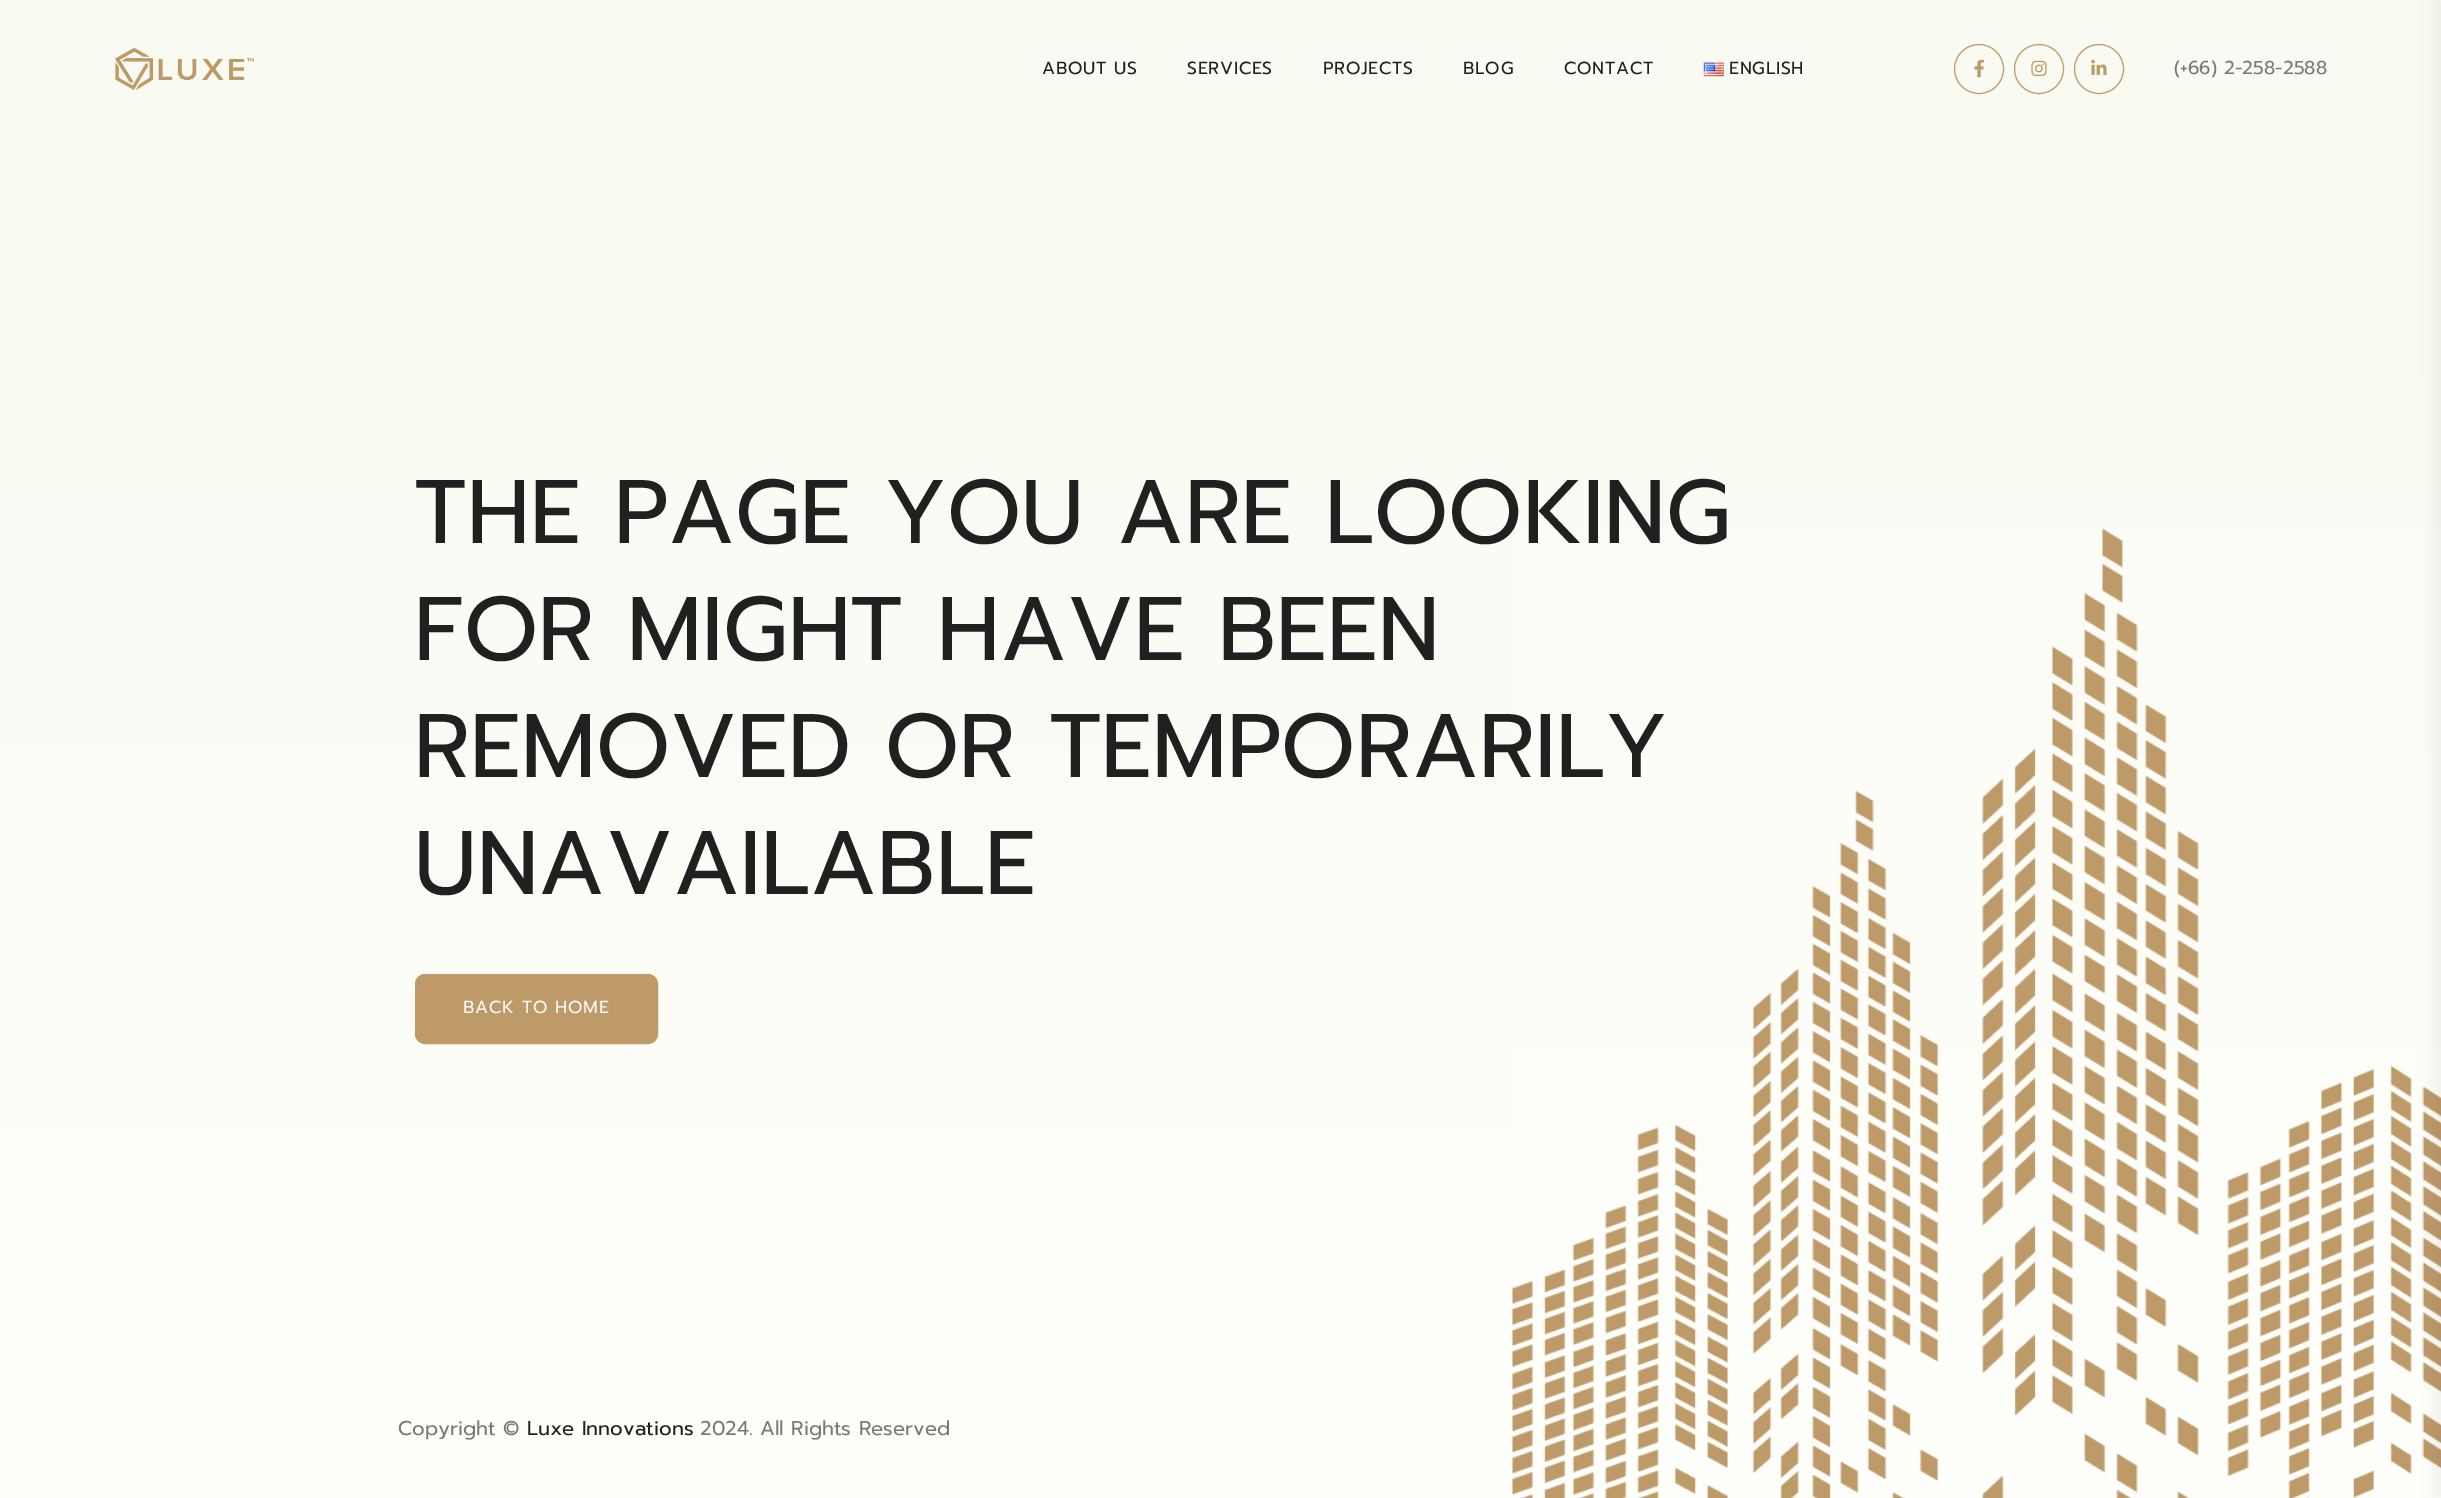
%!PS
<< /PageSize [2441 1498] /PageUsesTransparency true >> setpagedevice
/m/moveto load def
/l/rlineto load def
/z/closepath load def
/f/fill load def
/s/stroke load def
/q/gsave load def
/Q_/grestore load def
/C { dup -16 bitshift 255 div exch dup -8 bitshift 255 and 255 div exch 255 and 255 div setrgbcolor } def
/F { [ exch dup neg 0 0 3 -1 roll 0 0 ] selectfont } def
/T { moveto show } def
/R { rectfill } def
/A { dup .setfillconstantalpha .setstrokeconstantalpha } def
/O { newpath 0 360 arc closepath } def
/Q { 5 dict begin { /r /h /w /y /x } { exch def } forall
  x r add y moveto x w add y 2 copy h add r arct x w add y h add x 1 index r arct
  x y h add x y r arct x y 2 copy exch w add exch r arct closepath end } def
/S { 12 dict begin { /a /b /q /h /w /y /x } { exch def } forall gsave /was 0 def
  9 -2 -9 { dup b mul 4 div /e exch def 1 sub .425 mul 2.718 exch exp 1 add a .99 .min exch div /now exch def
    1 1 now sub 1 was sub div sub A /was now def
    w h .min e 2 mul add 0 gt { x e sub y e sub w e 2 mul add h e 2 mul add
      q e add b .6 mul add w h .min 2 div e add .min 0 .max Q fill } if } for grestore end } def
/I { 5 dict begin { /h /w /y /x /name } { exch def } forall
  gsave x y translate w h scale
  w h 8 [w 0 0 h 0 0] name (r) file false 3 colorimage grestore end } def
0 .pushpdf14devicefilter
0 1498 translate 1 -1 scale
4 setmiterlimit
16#FFFFFF C
0 0 2441 1498 R
q 0 0 m 2441 0 l 0 1498 l -2441 0 l z clip newpath
<< /ShadingType 2 /ColorSpace /DeviceRGB /Coords [1221 0 1221 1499] /Extend [true true] /Function << /FunctionType 2 /Domain [0 1] /C0 [.976 .98 .945] /C1 [.996 1 .984] /N 1 >> >> shfill Q_
(1.rgb) 115 47 139 43 I
/Prompt-Regular 17.5 F
16#202020 C
1042 74 m .75 0 (ABOUT US) ashow
1187 74 m .75 0 (SERVICES) ashow
1323 74 m .75 0 (PROJECTS) ashow
1463 74 m .75 0 (BLOG) ashow
1564 74 m .75 0 (CONTACT) ashow
(2.rgb) 1703 62 21 15 I
1729 74 m .75 0 (ENGLISH) ashow
16#BD9A68 C
1979 69 24.5 O s
(3.rgb) 1974 59 10 19 I
2039 69 24.5 O s
(4.rgb) 2031 60 16 17 I
2099 69 24.5 O s
(5.rgb) 2091 59 16 16 I
/Prompt-Regular 18.75 F
16#797978 C
(\(+66\) 2-258-2588) 2174 74 T
(6.rgb) 1512 528 929 970 I
16#000000 C
2434 0 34 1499 0 9 .06 S
/Prompt-Regular 90 F
16#202020 C
(THE PAGE YOU ARE LOOKING) 414 543 T
(FOR MIGHT HAVE BEEN) 414 660 T
(REMOVED OR TEMPORARILY) 414 777 T
(UNAVAILABLE) 414 894 T
16#BD9A68 C
415.5 974.5 242 69 9.5 Q q f Q_
s
/Prompt-Regular 17.5 F
16#FBFBFB C
463 1013 m .75 0 (BACK TO HOME) ashow
/Prompt-Regular 20 F
16#797978 C
(Copyright ©) 398 1435 T
16#202020 C
(Luxe Innovations) 527 1435 T
16#797978 C
(2024. All Rights Reserved) 700 1435 T
.poppdf14devicefilter showpage
